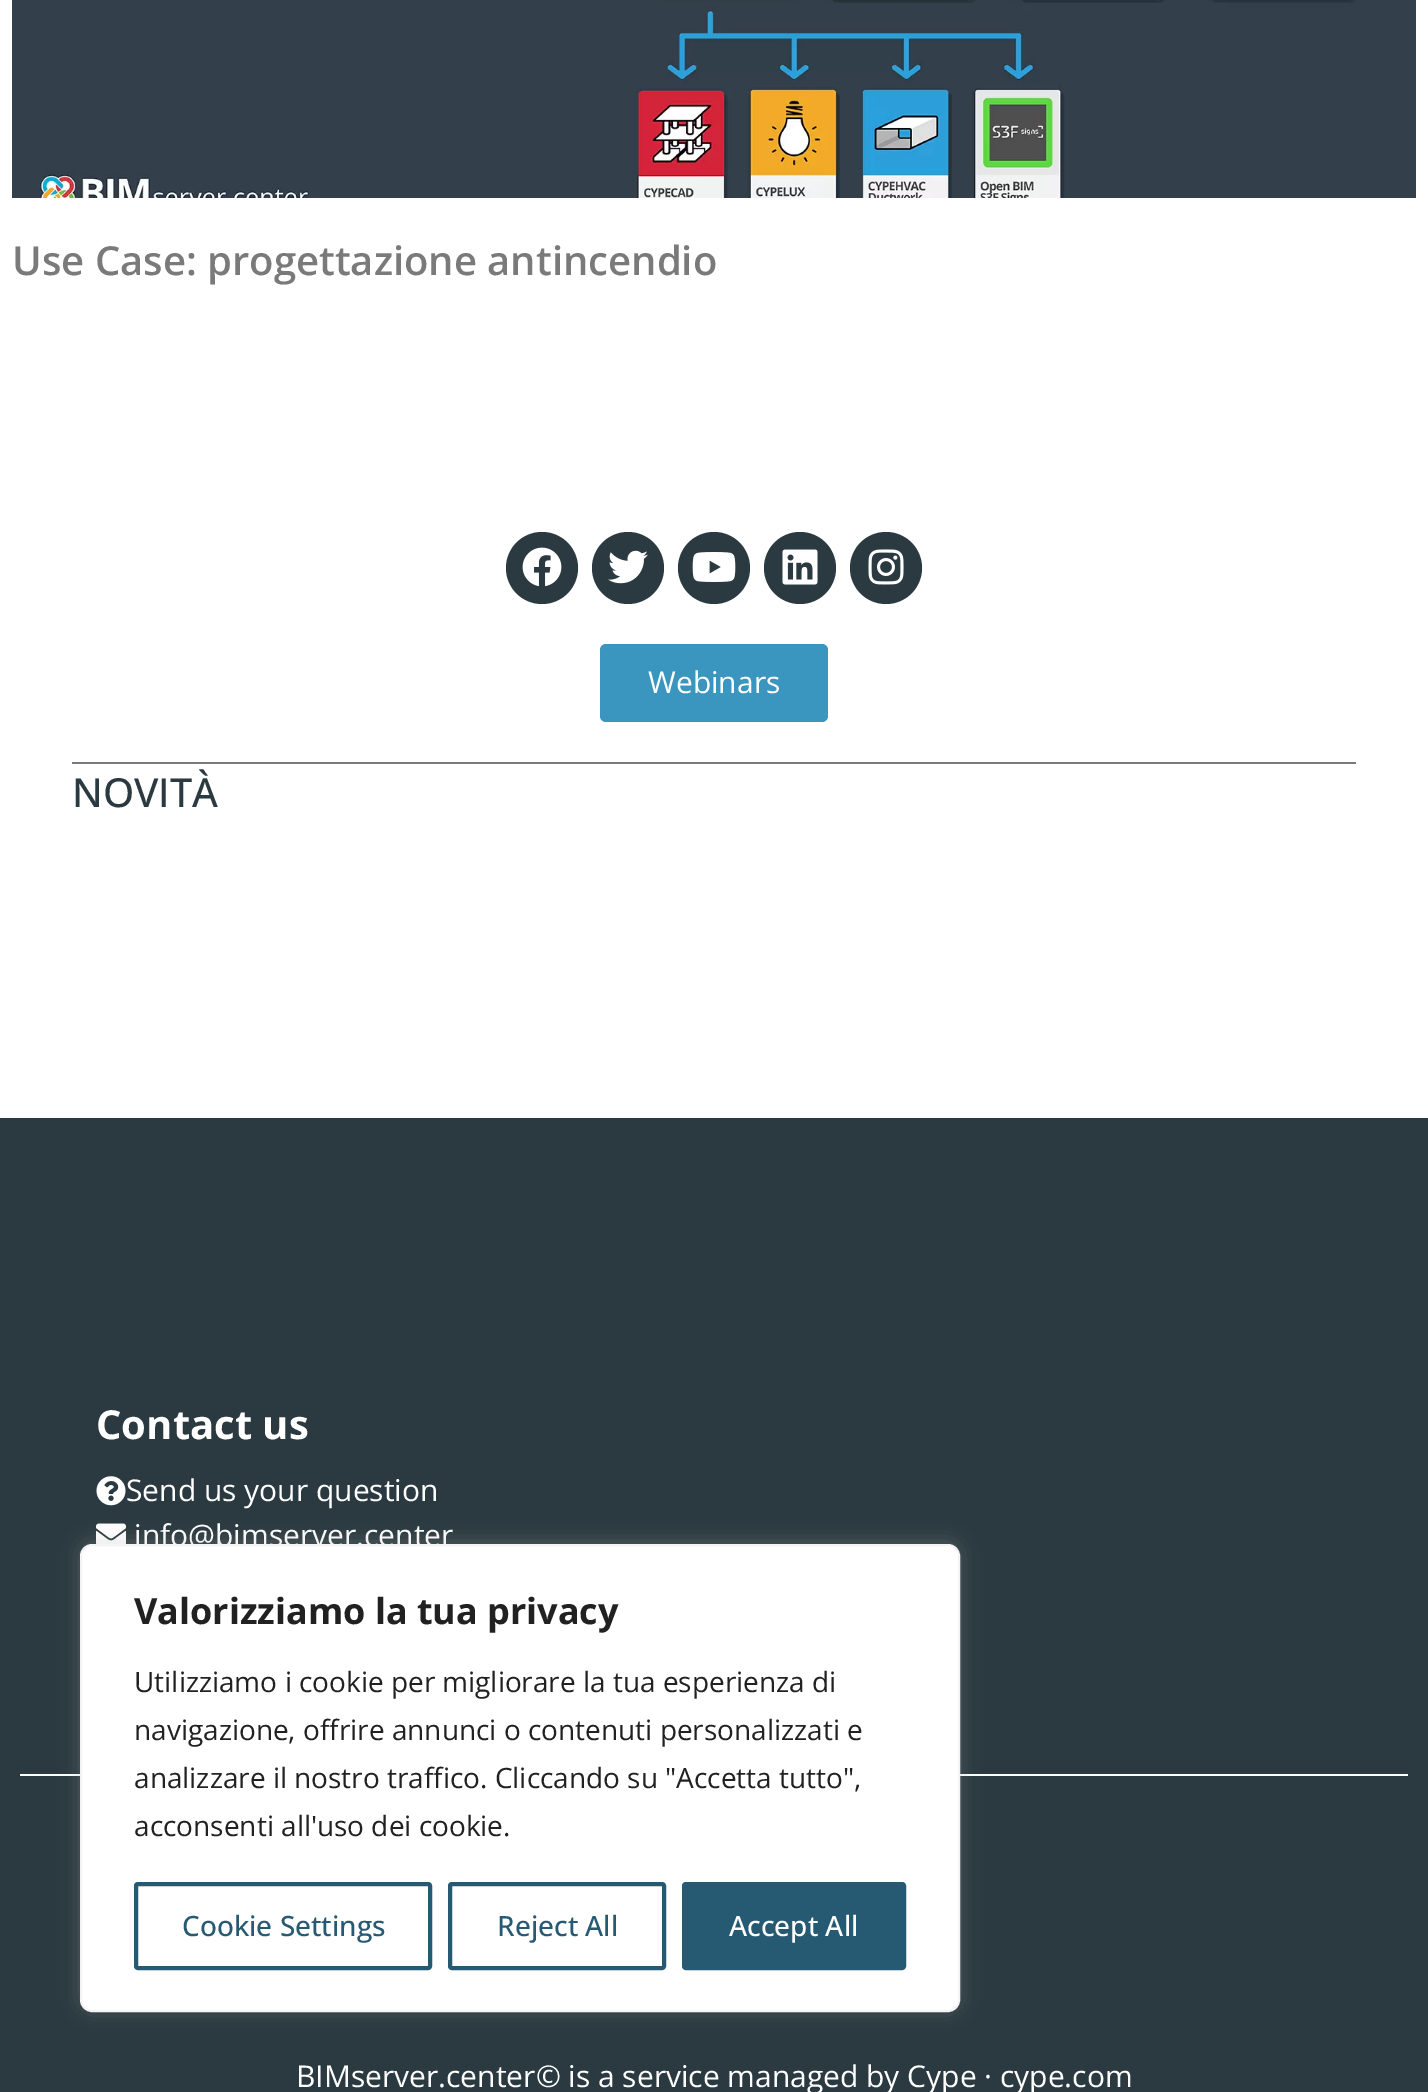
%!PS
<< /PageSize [1428 2092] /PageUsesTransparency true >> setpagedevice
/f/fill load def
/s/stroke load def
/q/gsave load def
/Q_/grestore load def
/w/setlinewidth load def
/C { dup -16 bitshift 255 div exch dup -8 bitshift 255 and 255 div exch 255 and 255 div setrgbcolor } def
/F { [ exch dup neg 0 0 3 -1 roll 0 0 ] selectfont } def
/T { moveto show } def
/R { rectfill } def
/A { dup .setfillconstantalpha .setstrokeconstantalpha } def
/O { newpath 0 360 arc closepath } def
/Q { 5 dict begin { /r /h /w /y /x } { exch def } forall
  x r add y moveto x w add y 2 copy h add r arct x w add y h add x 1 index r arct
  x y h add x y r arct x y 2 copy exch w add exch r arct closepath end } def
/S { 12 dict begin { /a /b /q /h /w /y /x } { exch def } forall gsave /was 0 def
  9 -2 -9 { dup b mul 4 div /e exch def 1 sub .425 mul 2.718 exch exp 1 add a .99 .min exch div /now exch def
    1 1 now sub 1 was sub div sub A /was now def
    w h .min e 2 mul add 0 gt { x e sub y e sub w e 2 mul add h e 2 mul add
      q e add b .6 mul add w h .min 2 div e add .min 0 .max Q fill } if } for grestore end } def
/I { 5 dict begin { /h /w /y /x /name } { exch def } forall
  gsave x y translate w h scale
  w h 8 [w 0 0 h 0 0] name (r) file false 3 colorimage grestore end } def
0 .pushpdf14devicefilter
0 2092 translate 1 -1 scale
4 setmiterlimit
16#FFFFFF C
0 0 1428 2092 R
(1.rgb) 12 0 1404 198 I
/OpenSans-SemiBold 40 F
16#7A7A7A C
(Use Case: progettazione antincendio) 12 275 T
16#2A3A40 C
542 568 36 O f
(2.rgb) 522 547 40 40 I
628 568 36 O f
(3.rgb) 608 550 40 34 I
714 568 36 O f
(4.rgb) 692 552 44 30 I
800 568 36 O f
(5.rgb) 782 549 36 36 I
886 568 36 O f
(6.rgb) 868 549 36 36 I
16#3B96BF C
600 644 228 78 6 Q f
/OpenSans-Regular 30 F
16#FFFFFF C
(Webinars) 648 693 T
16#7A7A7A C
72 762 1284 2 R
/OpenSans-Medium 40 F
16#2A3A40 C
(NOVITÀ) 72 807 T
0 1118 1428 974 R
/OpenSans-Bold 40 F
16#FFFFFF C
(Contact us) 96 1439 T
(7.rgb) 96 1476 30 30 I
/OpenSans-Regular 30 F
(Send us your question) 126 1501 T
(8.rgb) 96 1523 30 21 I
(info@bimserver.center) 134 1546 T
20 1774 1388 2 R
(BIMserver.center© is a service managed by Cype · cype.com) 296 2087 T
16#ACABAB C
80 1542 880 468 12 10 .3 S
16#FFFFFF C
81 1545 878 466 11 Q q f Q_
16#F4F4F4 C
2 w
s
/OpenSans-Bold 36 F
16#212121 C
(Valorizziamo la tua privacy) 134 1624 T
/OpenSans-Regular 28 F
(Utilizziamo i cookie per migliorare la tua esperienza di) 134 1692 T
(navigazione, offrire annunci o contenuti personalizzati e) 134 1740 T
(analizzare il nostro traffico. Cliccando su "Accetta tutto",) 134 1788 T
(acconsenti all'uso dei cookie.) 134 1836 T
16#265972 C
4 w
136 1884 294 84 2 Q s
/OpenSans-Medium 28 F
(Cookie Settings) 182 1936 T
450 1884 214 84 2 Q s
(Reject All) 497 1936 T
684 1884 220 84 2 Q q f Q_
s
16#FFFFFF C
(Accept All) 729 1936 T
.poppdf14devicefilter showpage
